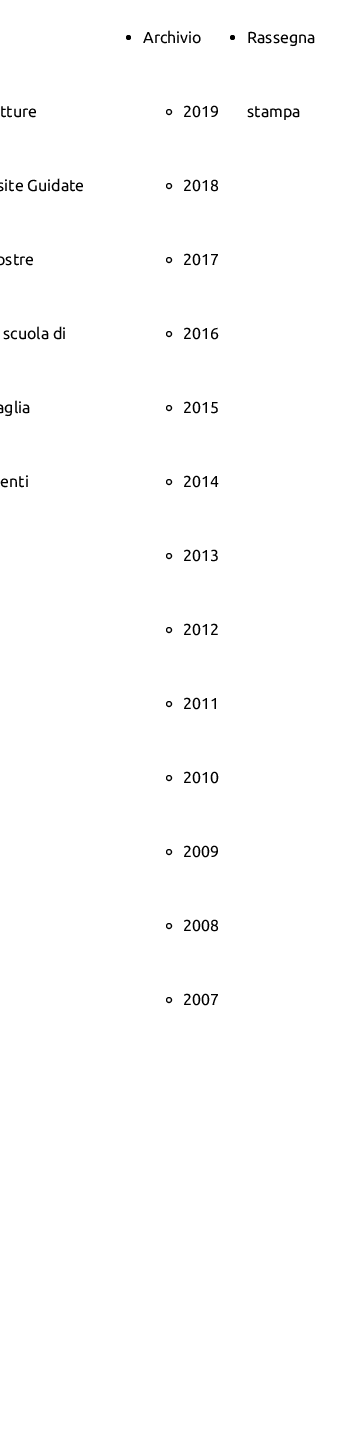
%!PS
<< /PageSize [354 1442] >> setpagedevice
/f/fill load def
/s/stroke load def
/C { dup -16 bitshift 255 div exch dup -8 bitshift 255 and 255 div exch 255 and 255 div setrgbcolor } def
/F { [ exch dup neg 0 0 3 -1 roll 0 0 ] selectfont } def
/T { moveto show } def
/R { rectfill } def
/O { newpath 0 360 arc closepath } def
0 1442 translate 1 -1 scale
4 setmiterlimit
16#FFFFFF C
0 0 354 1442 R
16#000000 C
128.5 37.5 2.5 O f
/Ubuntu-Regular 16 F
(Archivio) 143 43 T
169 112 2.5 O s
(2019) 183 117 T
169 186 2.5 O s
(2018) 183 191 T
169 260 2.5 O s
(2017) 183 265 T
169 334 2.5 O s
(2016) 183 339 T
169 408 2.5 O s
(2015) 183 413 T
169 482 2.5 O s
(2014) 183 487 T
169 556 2.5 O s
(2013) 183 561 T
169 630 2.5 O s
(2012) 183 635 T
169 704 2.5 O s
(2011) 183 709 T
169 778 2.5 O s
(2010) 183 783 T
169 852 2.5 O s
(2009) 183 857 T
169 926 2.5 O s
(2008) 183 931 T
169 1000 2.5 O s
(2007) 183 1005 T
232.5 37.5 2.5 O f
(Rassegna) 247 43 T
(stampa) 247 117 T
(tture) 0 117 T
(site Guidate) -3 191 T
(ostre) -4 265 T
(scuola di) 3 339 T
(aglia) -4 413 T
(enti) 0 487 T
showpage
